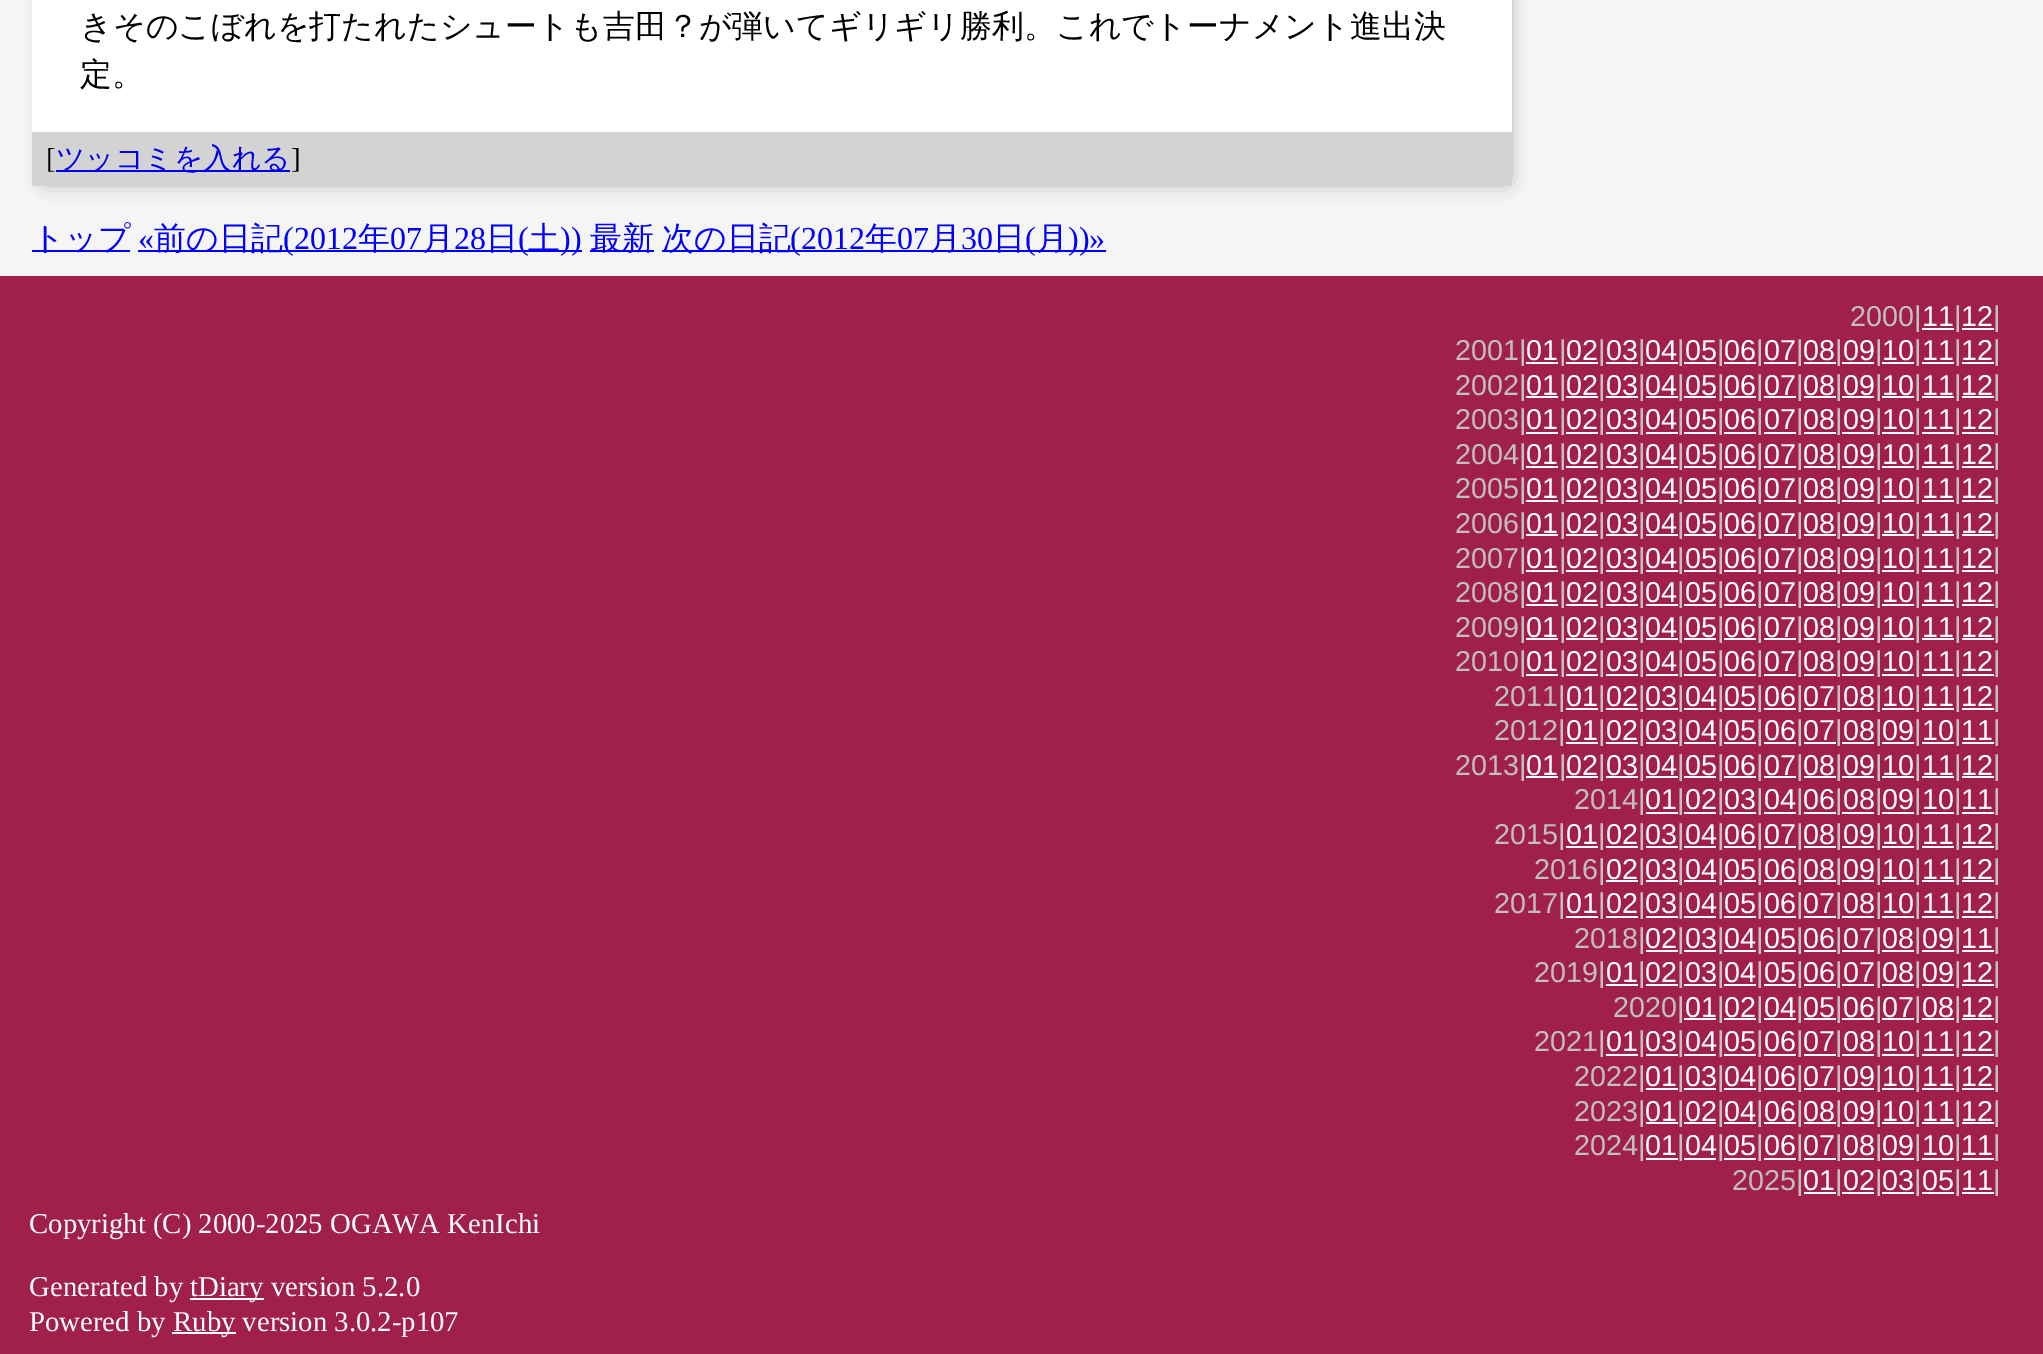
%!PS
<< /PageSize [2043 1354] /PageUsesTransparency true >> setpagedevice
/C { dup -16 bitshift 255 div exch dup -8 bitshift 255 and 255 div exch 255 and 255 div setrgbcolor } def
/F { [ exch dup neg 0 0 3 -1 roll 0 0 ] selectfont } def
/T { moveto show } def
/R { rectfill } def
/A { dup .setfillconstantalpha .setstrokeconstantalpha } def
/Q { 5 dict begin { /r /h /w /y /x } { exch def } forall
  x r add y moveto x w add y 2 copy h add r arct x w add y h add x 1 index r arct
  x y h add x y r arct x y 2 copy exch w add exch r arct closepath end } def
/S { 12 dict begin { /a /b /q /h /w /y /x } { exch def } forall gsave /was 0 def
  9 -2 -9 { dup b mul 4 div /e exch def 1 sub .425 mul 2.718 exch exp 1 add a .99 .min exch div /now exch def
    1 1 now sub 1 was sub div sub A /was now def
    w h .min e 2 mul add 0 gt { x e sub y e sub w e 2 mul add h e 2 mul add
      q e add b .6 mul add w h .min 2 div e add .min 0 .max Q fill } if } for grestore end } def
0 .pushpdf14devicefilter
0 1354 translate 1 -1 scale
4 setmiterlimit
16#F5F5F5 C
0 0 2043 1354 R
16#808080 C
46 -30 1460 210 0 10 1 S
16#FFFFFF C
32 0 1480 132 R
/WenQuanYiZenHei-Medium 32 F
16#000000 C
(きそのこぼれを打たれたシュートも吉田？が弾いてギリギリ勝利。これでトーナメント進出決) 80 37 T
(定。) 80 85 T
16#D3D3D3 C
32 132 1480 54 R
/LiberationSerif-Regular 28.75 F
16#000000 C
([) 46 168 T
16#0000EE C
56 170 234 2 R
/WenQuanYiZenHei-Medium 28.75 F
(ツッコミを入れる) 56 168 T
/LiberationSerif-Regular 28.75 F
16#000000 C
(]) 291 168 T
16#0000FF C
32 250 98 2 R
/WenQuanYiZenHei-Medium 32 F
(トップ) 32 249 T
/LiberationSerif-Regular 32 F
(«) 138 249 T
138 250 444 2 R
/WenQuanYiZenHei-Medium 32 F
(前の日記) 154 249 T
/LiberationSerif-Regular 32 F
(\(2012) 283 249 T
/WenQuanYiZenHei-Medium 32 F
(年) 358 249 T
/LiberationSerif-Regular 32 F
(07) 390 249 T
/WenQuanYiZenHei-Medium 32 F
(月) 422 249 T
/LiberationSerif-Regular 32 F
(28) 454 249 T
/WenQuanYiZenHei-Medium 32 F
(日) 486 249 T
/LiberationSerif-Regular 32 F
(\() 518 249 T
/WenQuanYiZenHei-Medium 32 F
(土) 528 249 T
/LiberationSerif-Regular 32 F
(\)\)) 560 249 T
590 250 64 2 R
/WenQuanYiZenHei-Medium 32 F
(最新) 590 249 T
662 250 444 2 R
(次の日記) 662 249 T
/LiberationSerif-Regular 32 F
(\(2012) 790 249 T
/WenQuanYiZenHei-Medium 32 F
(年) 865 249 T
/LiberationSerif-Regular 32 F
(07) 897 249 T
/WenQuanYiZenHei-Medium 32 F
(月) 929 249 T
/LiberationSerif-Regular 32 F
(30) 961 249 T
/WenQuanYiZenHei-Medium 32 F
(日) 993 249 T
/LiberationSerif-Regular 32 F
(\() 1025 249 T
/WenQuanYiZenHei-Medium 32 F
(月) 1036 249 T
/LiberationSerif-Regular 32 F
(\)\)») 1068 249 T
16#A0204B C
0 276 2043 1078 R
/LiberationSans-Regular 28.75 F
16#C0C0C0 C
(2000|) 1850 326 T
16#FFFFFF C
(11) 1922 326 T
1922 328 32 2 R
16#C0C0C0 C
(|) 1954 326 T
16#FFFFFF C
(12) 1961 326 T
1962 328 32 2 R
16#C0C0C0 C
(|) 1993 326 T
(2001|) 1455 360 T
16#FFFFFF C
(01) 1526 360 T
1526 362 32 2 R
16#C0C0C0 C
(|) 1559 360 T
16#FFFFFF C
(02) 1566 360 T
1566 362 32 2 R
16#C0C0C0 C
(|) 1598 360 T
16#FFFFFF C
(03) 1606 360 T
1606 362 32 2 R
16#C0C0C0 C
(|) 1638 360 T
16#FFFFFF C
(04) 1645 360 T
1646 362 32 2 R
16#C0C0C0 C
(|) 1677 360 T
16#FFFFFF C
(05) 1685 360 T
1684 362 32 2 R
16#C0C0C0 C
(|) 1717 360 T
16#FFFFFF C
(06) 1724 360 T
1724 362 32 2 R
16#C0C0C0 C
(|) 1756 360 T
16#FFFFFF C
(07) 1764 360 T
1764 362 32 2 R
16#C0C0C0 C
(|) 1796 360 T
16#FFFFFF C
(08) 1803 360 T
1804 362 32 2 R
16#C0C0C0 C
(|) 1835 360 T
16#FFFFFF C
(09) 1843 360 T
1842 362 32 2 R
16#C0C0C0 C
(|) 1875 360 T
16#FFFFFF C
(10) 1882 360 T
1882 362 32 2 R
16#C0C0C0 C
(|) 1914 360 T
16#FFFFFF C
(11) 1922 360 T
1922 362 32 2 R
16#C0C0C0 C
(|) 1954 360 T
16#FFFFFF C
(12) 1961 360 T
1962 362 32 2 R
16#C0C0C0 C
(|) 1993 360 T
(2002|) 1455 395 T
16#FFFFFF C
(01) 1526 395 T
1526 396 32 2 R
16#C0C0C0 C
(|) 1559 395 T
16#FFFFFF C
(02) 1566 395 T
1566 396 32 2 R
16#C0C0C0 C
(|) 1598 395 T
16#FFFFFF C
(03) 1606 395 T
1606 396 32 2 R
16#C0C0C0 C
(|) 1638 395 T
16#FFFFFF C
(04) 1645 395 T
1646 396 32 2 R
16#C0C0C0 C
(|) 1677 395 T
16#FFFFFF C
(05) 1685 395 T
1684 396 32 2 R
16#C0C0C0 C
(|) 1717 395 T
16#FFFFFF C
(06) 1724 395 T
1724 396 32 2 R
16#C0C0C0 C
(|) 1756 395 T
16#FFFFFF C
(07) 1764 395 T
1764 396 32 2 R
16#C0C0C0 C
(|) 1796 395 T
16#FFFFFF C
(08) 1803 395 T
1804 396 32 2 R
16#C0C0C0 C
(|) 1835 395 T
16#FFFFFF C
(09) 1843 395 T
1842 396 32 2 R
16#C0C0C0 C
(|) 1875 395 T
16#FFFFFF C
(10) 1882 395 T
1882 396 32 2 R
16#C0C0C0 C
(|) 1914 395 T
16#FFFFFF C
(11) 1922 395 T
1922 396 32 2 R
16#C0C0C0 C
(|) 1954 395 T
16#FFFFFF C
(12) 1961 395 T
1962 396 32 2 R
16#C0C0C0 C
(|) 1993 395 T
(2003|) 1455 429 T
16#FFFFFF C
(01) 1526 429 T
1526 432 32 2 R
16#C0C0C0 C
(|) 1559 429 T
16#FFFFFF C
(02) 1566 429 T
1566 432 32 2 R
16#C0C0C0 C
(|) 1598 429 T
16#FFFFFF C
(03) 1606 429 T
1606 432 32 2 R
16#C0C0C0 C
(|) 1638 429 T
16#FFFFFF C
(04) 1645 429 T
1646 432 32 2 R
16#C0C0C0 C
(|) 1677 429 T
16#FFFFFF C
(05) 1685 429 T
1684 432 32 2 R
16#C0C0C0 C
(|) 1717 429 T
16#FFFFFF C
(06) 1724 429 T
1724 432 32 2 R
16#C0C0C0 C
(|) 1756 429 T
16#FFFFFF C
(07) 1764 429 T
1764 432 32 2 R
16#C0C0C0 C
(|) 1796 429 T
16#FFFFFF C
(08) 1803 429 T
1804 432 32 2 R
16#C0C0C0 C
(|) 1835 429 T
16#FFFFFF C
(09) 1843 429 T
1842 432 32 2 R
16#C0C0C0 C
(|) 1875 429 T
16#FFFFFF C
(10) 1882 429 T
1882 432 32 2 R
16#C0C0C0 C
(|) 1914 429 T
16#FFFFFF C
(11) 1922 429 T
1922 432 32 2 R
16#C0C0C0 C
(|) 1954 429 T
16#FFFFFF C
(12) 1961 429 T
1962 432 32 2 R
16#C0C0C0 C
(|) 1993 429 T
(2004|) 1455 464 T
16#FFFFFF C
(01) 1526 464 T
1526 466 32 2 R
16#C0C0C0 C
(|) 1559 464 T
16#FFFFFF C
(02) 1566 464 T
1566 466 32 2 R
16#C0C0C0 C
(|) 1598 464 T
16#FFFFFF C
(03) 1606 464 T
1606 466 32 2 R
16#C0C0C0 C
(|) 1638 464 T
16#FFFFFF C
(04) 1645 464 T
1646 466 32 2 R
16#C0C0C0 C
(|) 1677 464 T
16#FFFFFF C
(05) 1685 464 T
1684 466 32 2 R
16#C0C0C0 C
(|) 1717 464 T
16#FFFFFF C
(06) 1724 464 T
1724 466 32 2 R
16#C0C0C0 C
(|) 1756 464 T
16#FFFFFF C
(07) 1764 464 T
1764 466 32 2 R
16#C0C0C0 C
(|) 1796 464 T
16#FFFFFF C
(08) 1803 464 T
1804 466 32 2 R
16#C0C0C0 C
(|) 1835 464 T
16#FFFFFF C
(09) 1843 464 T
1842 466 32 2 R
16#C0C0C0 C
(|) 1875 464 T
16#FFFFFF C
(10) 1882 464 T
1882 466 32 2 R
16#C0C0C0 C
(|) 1914 464 T
16#FFFFFF C
(11) 1922 464 T
1922 466 32 2 R
16#C0C0C0 C
(|) 1954 464 T
16#FFFFFF C
(12) 1961 464 T
1962 466 32 2 R
16#C0C0C0 C
(|) 1993 464 T
(2005|) 1455 498 T
16#FFFFFF C
(01) 1526 498 T
1526 500 32 2 R
16#C0C0C0 C
(|) 1559 498 T
16#FFFFFF C
(02) 1566 498 T
1566 500 32 2 R
16#C0C0C0 C
(|) 1598 498 T
16#FFFFFF C
(03) 1606 498 T
1606 500 32 2 R
16#C0C0C0 C
(|) 1638 498 T
16#FFFFFF C
(04) 1645 498 T
1646 500 32 2 R
16#C0C0C0 C
(|) 1677 498 T
16#FFFFFF C
(05) 1685 498 T
1684 500 32 2 R
16#C0C0C0 C
(|) 1717 498 T
16#FFFFFF C
(06) 1724 498 T
1724 500 32 2 R
16#C0C0C0 C
(|) 1756 498 T
16#FFFFFF C
(07) 1764 498 T
1764 500 32 2 R
16#C0C0C0 C
(|) 1796 498 T
16#FFFFFF C
(08) 1803 498 T
1804 500 32 2 R
16#C0C0C0 C
(|) 1835 498 T
16#FFFFFF C
(09) 1843 498 T
1842 500 32 2 R
16#C0C0C0 C
(|) 1875 498 T
16#FFFFFF C
(10) 1882 498 T
1882 500 32 2 R
16#C0C0C0 C
(|) 1914 498 T
16#FFFFFF C
(11) 1922 498 T
1922 500 32 2 R
16#C0C0C0 C
(|) 1954 498 T
16#FFFFFF C
(12) 1961 498 T
1962 500 32 2 R
16#C0C0C0 C
(|) 1993 498 T
(2006|) 1455 533 T
16#FFFFFF C
(01) 1526 533 T
1526 534 32 2 R
16#C0C0C0 C
(|) 1559 533 T
16#FFFFFF C
(02) 1566 533 T
1566 534 32 2 R
16#C0C0C0 C
(|) 1598 533 T
16#FFFFFF C
(03) 1606 533 T
1606 534 32 2 R
16#C0C0C0 C
(|) 1638 533 T
16#FFFFFF C
(04) 1645 533 T
1646 534 32 2 R
16#C0C0C0 C
(|) 1677 533 T
16#FFFFFF C
(05) 1685 533 T
1684 534 32 2 R
16#C0C0C0 C
(|) 1717 533 T
16#FFFFFF C
(06) 1724 533 T
1724 534 32 2 R
16#C0C0C0 C
(|) 1756 533 T
16#FFFFFF C
(07) 1764 533 T
1764 534 32 2 R
16#C0C0C0 C
(|) 1796 533 T
16#FFFFFF C
(08) 1803 533 T
1804 534 32 2 R
16#C0C0C0 C
(|) 1835 533 T
16#FFFFFF C
(09) 1843 533 T
1842 534 32 2 R
16#C0C0C0 C
(|) 1875 533 T
16#FFFFFF C
(10) 1882 533 T
1882 534 32 2 R
16#C0C0C0 C
(|) 1914 533 T
16#FFFFFF C
(11) 1922 533 T
1922 534 32 2 R
16#C0C0C0 C
(|) 1954 533 T
16#FFFFFF C
(12) 1961 533 T
1962 534 32 2 R
16#C0C0C0 C
(|) 1993 533 T
(2007|) 1455 568 T
16#FFFFFF C
(01) 1526 568 T
1526 570 32 2 R
16#C0C0C0 C
(|) 1559 568 T
16#FFFFFF C
(02) 1566 568 T
1566 570 32 2 R
16#C0C0C0 C
(|) 1598 568 T
16#FFFFFF C
(03) 1606 568 T
1606 570 32 2 R
16#C0C0C0 C
(|) 1638 568 T
16#FFFFFF C
(04) 1645 568 T
1646 570 32 2 R
16#C0C0C0 C
(|) 1677 568 T
16#FFFFFF C
(05) 1685 568 T
1684 570 32 2 R
16#C0C0C0 C
(|) 1717 568 T
16#FFFFFF C
(06) 1724 568 T
1724 570 32 2 R
16#C0C0C0 C
(|) 1756 568 T
16#FFFFFF C
(07) 1764 568 T
1764 570 32 2 R
16#C0C0C0 C
(|) 1796 568 T
16#FFFFFF C
(08) 1803 568 T
1804 570 32 2 R
16#C0C0C0 C
(|) 1835 568 T
16#FFFFFF C
(09) 1843 568 T
1842 570 32 2 R
16#C0C0C0 C
(|) 1875 568 T
16#FFFFFF C
(10) 1882 568 T
1882 570 32 2 R
16#C0C0C0 C
(|) 1914 568 T
16#FFFFFF C
(11) 1922 568 T
1922 570 32 2 R
16#C0C0C0 C
(|) 1954 568 T
16#FFFFFF C
(12) 1961 568 T
1962 570 32 2 R
16#C0C0C0 C
(|) 1993 568 T
(2008|) 1455 602 T
16#FFFFFF C
(01) 1526 602 T
1526 604 32 2 R
16#C0C0C0 C
(|) 1559 602 T
16#FFFFFF C
(02) 1566 602 T
1566 604 32 2 R
16#C0C0C0 C
(|) 1598 602 T
16#FFFFFF C
(03) 1606 602 T
1606 604 32 2 R
16#C0C0C0 C
(|) 1638 602 T
16#FFFFFF C
(04) 1645 602 T
1646 604 32 2 R
16#C0C0C0 C
(|) 1677 602 T
16#FFFFFF C
(05) 1685 602 T
1684 604 32 2 R
16#C0C0C0 C
(|) 1717 602 T
16#FFFFFF C
(06) 1724 602 T
1724 604 32 2 R
16#C0C0C0 C
(|) 1756 602 T
16#FFFFFF C
(07) 1764 602 T
1764 604 32 2 R
16#C0C0C0 C
(|) 1796 602 T
16#FFFFFF C
(08) 1803 602 T
1804 604 32 2 R
16#C0C0C0 C
(|) 1835 602 T
16#FFFFFF C
(09) 1843 602 T
1842 604 32 2 R
16#C0C0C0 C
(|) 1875 602 T
16#FFFFFF C
(10) 1882 602 T
1882 604 32 2 R
16#C0C0C0 C
(|) 1914 602 T
16#FFFFFF C
(11) 1922 602 T
1922 604 32 2 R
16#C0C0C0 C
(|) 1954 602 T
16#FFFFFF C
(12) 1961 602 T
1962 604 32 2 R
16#C0C0C0 C
(|) 1993 602 T
(2009|) 1455 637 T
16#FFFFFF C
(01) 1526 637 T
1526 638 32 2 R
16#C0C0C0 C
(|) 1559 637 T
16#FFFFFF C
(02) 1566 637 T
1566 638 32 2 R
16#C0C0C0 C
(|) 1598 637 T
16#FFFFFF C
(03) 1606 637 T
1606 638 32 2 R
16#C0C0C0 C
(|) 1638 637 T
16#FFFFFF C
(04) 1645 637 T
1646 638 32 2 R
16#C0C0C0 C
(|) 1677 637 T
16#FFFFFF C
(05) 1685 637 T
1684 638 32 2 R
16#C0C0C0 C
(|) 1717 637 T
16#FFFFFF C
(06) 1724 637 T
1724 638 32 2 R
16#C0C0C0 C
(|) 1756 637 T
16#FFFFFF C
(07) 1764 637 T
1764 638 32 2 R
16#C0C0C0 C
(|) 1796 637 T
16#FFFFFF C
(08) 1803 637 T
1804 638 32 2 R
16#C0C0C0 C
(|) 1835 637 T
16#FFFFFF C
(09) 1843 637 T
1842 638 32 2 R
16#C0C0C0 C
(|) 1875 637 T
16#FFFFFF C
(10) 1882 637 T
1882 638 32 2 R
16#C0C0C0 C
(|) 1914 637 T
16#FFFFFF C
(11) 1922 637 T
1922 638 32 2 R
16#C0C0C0 C
(|) 1954 637 T
16#FFFFFF C
(12) 1961 637 T
1962 638 32 2 R
16#C0C0C0 C
(|) 1993 637 T
(2010|) 1455 671 T
16#FFFFFF C
(01) 1526 671 T
1526 674 32 2 R
16#C0C0C0 C
(|) 1559 671 T
16#FFFFFF C
(02) 1566 671 T
1566 674 32 2 R
16#C0C0C0 C
(|) 1598 671 T
16#FFFFFF C
(03) 1606 671 T
1606 674 32 2 R
16#C0C0C0 C
(|) 1638 671 T
16#FFFFFF C
(04) 1645 671 T
1646 674 32 2 R
16#C0C0C0 C
(|) 1677 671 T
16#FFFFFF C
(05) 1685 671 T
1684 674 32 2 R
16#C0C0C0 C
(|) 1717 671 T
16#FFFFFF C
(06) 1724 671 T
1724 674 32 2 R
16#C0C0C0 C
(|) 1756 671 T
16#FFFFFF C
(07) 1764 671 T
1764 674 32 2 R
16#C0C0C0 C
(|) 1796 671 T
16#FFFFFF C
(08) 1803 671 T
1804 674 32 2 R
16#C0C0C0 C
(|) 1835 671 T
16#FFFFFF C
(09) 1843 671 T
1842 674 32 2 R
16#C0C0C0 C
(|) 1875 671 T
16#FFFFFF C
(10) 1882 671 T
1882 674 32 2 R
16#C0C0C0 C
(|) 1914 671 T
16#FFFFFF C
(11) 1922 671 T
1922 674 32 2 R
16#C0C0C0 C
(|) 1954 671 T
16#FFFFFF C
(12) 1961 671 T
1962 674 32 2 R
16#C0C0C0 C
(|) 1993 671 T
(2011|) 1494 706 T
16#FFFFFF C
(01) 1566 706 T
1566 708 32 2 R
16#C0C0C0 C
(|) 1598 706 T
16#FFFFFF C
(02) 1606 706 T
1606 708 32 2 R
16#C0C0C0 C
(|) 1638 706 T
16#FFFFFF C
(03) 1645 706 T
1646 708 32 2 R
16#C0C0C0 C
(|) 1677 706 T
16#FFFFFF C
(04) 1685 706 T
1684 708 32 2 R
16#C0C0C0 C
(|) 1717 706 T
16#FFFFFF C
(05) 1724 706 T
1724 708 32 2 R
16#C0C0C0 C
(|) 1756 706 T
16#FFFFFF C
(06) 1764 706 T
1764 708 32 2 R
16#C0C0C0 C
(|) 1796 706 T
16#FFFFFF C
(07) 1803 706 T
1804 708 32 2 R
16#C0C0C0 C
(|) 1835 706 T
16#FFFFFF C
(08) 1843 706 T
1842 708 32 2 R
16#C0C0C0 C
(|) 1875 706 T
16#FFFFFF C
(10) 1882 706 T
1882 708 32 2 R
16#C0C0C0 C
(|) 1914 706 T
16#FFFFFF C
(11) 1922 706 T
1922 708 32 2 R
16#C0C0C0 C
(|) 1954 706 T
16#FFFFFF C
(12) 1961 706 T
1962 708 32 2 R
16#C0C0C0 C
(|) 1993 706 T
(2012|) 1494 740 T
16#FFFFFF C
(01) 1566 740 T
1566 742 32 2 R
16#C0C0C0 C
(|) 1598 740 T
16#FFFFFF C
(02) 1606 740 T
1606 742 32 2 R
16#C0C0C0 C
(|) 1638 740 T
16#FFFFFF C
(03) 1645 740 T
1646 742 32 2 R
16#C0C0C0 C
(|) 1677 740 T
16#FFFFFF C
(04) 1685 740 T
1684 742 32 2 R
16#C0C0C0 C
(|) 1717 740 T
16#FFFFFF C
(05) 1724 740 T
1724 742 32 2 R
16#C0C0C0 C
(|) 1756 740 T
16#FFFFFF C
(06) 1764 740 T
1764 742 32 2 R
16#C0C0C0 C
(|) 1796 740 T
16#FFFFFF C
(07) 1803 740 T
1804 742 32 2 R
16#C0C0C0 C
(|) 1835 740 T
16#FFFFFF C
(08) 1843 740 T
1842 742 32 2 R
16#C0C0C0 C
(|) 1875 740 T
16#FFFFFF C
(09) 1882 740 T
1882 742 32 2 R
16#C0C0C0 C
(|) 1914 740 T
16#FFFFFF C
(10) 1922 740 T
1922 742 32 2 R
16#C0C0C0 C
(|) 1954 740 T
16#FFFFFF C
(11) 1961 740 T
1962 742 32 2 R
16#C0C0C0 C
(|) 1993 740 T
(2013|) 1455 775 T
16#FFFFFF C
(01) 1526 775 T
1526 776 32 2 R
16#C0C0C0 C
(|) 1559 775 T
16#FFFFFF C
(02) 1566 775 T
1566 776 32 2 R
16#C0C0C0 C
(|) 1598 775 T
16#FFFFFF C
(03) 1606 775 T
1606 776 32 2 R
16#C0C0C0 C
(|) 1638 775 T
16#FFFFFF C
(04) 1645 775 T
1646 776 32 2 R
16#C0C0C0 C
(|) 1677 775 T
16#FFFFFF C
(05) 1685 775 T
1684 776 32 2 R
16#C0C0C0 C
(|) 1717 775 T
16#FFFFFF C
(06) 1724 775 T
1724 776 32 2 R
16#C0C0C0 C
(|) 1756 775 T
16#FFFFFF C
(07) 1764 775 T
1764 776 32 2 R
16#C0C0C0 C
(|) 1796 775 T
16#FFFFFF C
(08) 1803 775 T
1804 776 32 2 R
16#C0C0C0 C
(|) 1835 775 T
16#FFFFFF C
(09) 1843 775 T
1842 776 32 2 R
16#C0C0C0 C
(|) 1875 775 T
16#FFFFFF C
(10) 1882 775 T
1882 776 32 2 R
16#C0C0C0 C
(|) 1914 775 T
16#FFFFFF C
(11) 1922 775 T
1922 776 32 2 R
16#C0C0C0 C
(|) 1954 775 T
16#FFFFFF C
(12) 1961 775 T
1962 776 32 2 R
16#C0C0C0 C
(|) 1993 775 T
(2014|) 1574 809 T
16#FFFFFF C
(01) 1645 809 T
1646 812 32 2 R
16#C0C0C0 C
(|) 1677 809 T
16#FFFFFF C
(02) 1685 809 T
1684 812 32 2 R
16#C0C0C0 C
(|) 1717 809 T
16#FFFFFF C
(03) 1724 809 T
1724 812 32 2 R
16#C0C0C0 C
(|) 1756 809 T
16#FFFFFF C
(04) 1764 809 T
1764 812 32 2 R
16#C0C0C0 C
(|) 1796 809 T
16#FFFFFF C
(06) 1803 809 T
1804 812 32 2 R
16#C0C0C0 C
(|) 1835 809 T
16#FFFFFF C
(08) 1843 809 T
1842 812 32 2 R
16#C0C0C0 C
(|) 1875 809 T
16#FFFFFF C
(09) 1882 809 T
1882 812 32 2 R
16#C0C0C0 C
(|) 1914 809 T
16#FFFFFF C
(10) 1922 809 T
1922 812 32 2 R
16#C0C0C0 C
(|) 1954 809 T
16#FFFFFF C
(11) 1961 809 T
1962 812 32 2 R
16#C0C0C0 C
(|) 1993 809 T
(2015|) 1494 844 T
16#FFFFFF C
(01) 1566 844 T
1566 846 32 2 R
16#C0C0C0 C
(|) 1598 844 T
16#FFFFFF C
(02) 1606 844 T
1606 846 32 2 R
16#C0C0C0 C
(|) 1638 844 T
16#FFFFFF C
(03) 1645 844 T
1646 846 32 2 R
16#C0C0C0 C
(|) 1677 844 T
16#FFFFFF C
(04) 1685 844 T
1684 846 32 2 R
16#C0C0C0 C
(|) 1717 844 T
16#FFFFFF C
(06) 1724 844 T
1724 846 32 2 R
16#C0C0C0 C
(|) 1756 844 T
16#FFFFFF C
(07) 1764 844 T
1764 846 32 2 R
16#C0C0C0 C
(|) 1796 844 T
16#FFFFFF C
(08) 1803 844 T
1804 846 32 2 R
16#C0C0C0 C
(|) 1835 844 T
16#FFFFFF C
(09) 1843 844 T
1842 846 32 2 R
16#C0C0C0 C
(|) 1875 844 T
16#FFFFFF C
(10) 1882 844 T
1882 846 32 2 R
16#C0C0C0 C
(|) 1914 844 T
16#FFFFFF C
(11) 1922 844 T
1922 846 32 2 R
16#C0C0C0 C
(|) 1954 844 T
16#FFFFFF C
(12) 1961 844 T
1962 846 32 2 R
16#C0C0C0 C
(|) 1993 844 T
(2016|) 1534 879 T
16#FFFFFF C
(02) 1606 879 T
1606 880 32 2 R
16#C0C0C0 C
(|) 1638 879 T
16#FFFFFF C
(03) 1645 879 T
1646 880 32 2 R
16#C0C0C0 C
(|) 1677 879 T
16#FFFFFF C
(04) 1685 879 T
1684 880 32 2 R
16#C0C0C0 C
(|) 1717 879 T
16#FFFFFF C
(05) 1724 879 T
1724 880 32 2 R
16#C0C0C0 C
(|) 1756 879 T
16#FFFFFF C
(06) 1764 879 T
1764 880 32 2 R
16#C0C0C0 C
(|) 1796 879 T
16#FFFFFF C
(08) 1803 879 T
1804 880 32 2 R
16#C0C0C0 C
(|) 1835 879 T
16#FFFFFF C
(09) 1843 879 T
1842 880 32 2 R
16#C0C0C0 C
(|) 1875 879 T
16#FFFFFF C
(10) 1882 879 T
1882 880 32 2 R
16#C0C0C0 C
(|) 1914 879 T
16#FFFFFF C
(11) 1922 879 T
1922 880 32 2 R
16#C0C0C0 C
(|) 1954 879 T
16#FFFFFF C
(12) 1961 879 T
1962 880 32 2 R
16#C0C0C0 C
(|) 1993 879 T
(2017|) 1494 913 T
16#FFFFFF C
(01) 1566 913 T
1566 916 32 2 R
16#C0C0C0 C
(|) 1598 913 T
16#FFFFFF C
(02) 1606 913 T
1606 916 32 2 R
16#C0C0C0 C
(|) 1638 913 T
16#FFFFFF C
(03) 1645 913 T
1646 916 32 2 R
16#C0C0C0 C
(|) 1677 913 T
16#FFFFFF C
(04) 1685 913 T
1684 916 32 2 R
16#C0C0C0 C
(|) 1717 913 T
16#FFFFFF C
(05) 1724 913 T
1724 916 32 2 R
16#C0C0C0 C
(|) 1756 913 T
16#FFFFFF C
(06) 1764 913 T
1764 916 32 2 R
16#C0C0C0 C
(|) 1796 913 T
16#FFFFFF C
(07) 1803 913 T
1804 916 32 2 R
16#C0C0C0 C
(|) 1835 913 T
16#FFFFFF C
(08) 1843 913 T
1842 916 32 2 R
16#C0C0C0 C
(|) 1875 913 T
16#FFFFFF C
(10) 1882 913 T
1882 916 32 2 R
16#C0C0C0 C
(|) 1914 913 T
16#FFFFFF C
(11) 1922 913 T
1922 916 32 2 R
16#C0C0C0 C
(|) 1954 913 T
16#FFFFFF C
(12) 1961 913 T
1962 916 32 2 R
16#C0C0C0 C
(|) 1993 913 T
(2018|) 1574 948 T
16#FFFFFF C
(02) 1645 948 T
1646 950 32 2 R
16#C0C0C0 C
(|) 1677 948 T
16#FFFFFF C
(03) 1685 948 T
1684 950 32 2 R
16#C0C0C0 C
(|) 1717 948 T
16#FFFFFF C
(04) 1724 948 T
1724 950 32 2 R
16#C0C0C0 C
(|) 1756 948 T
16#FFFFFF C
(05) 1764 948 T
1764 950 32 2 R
16#C0C0C0 C
(|) 1796 948 T
16#FFFFFF C
(06) 1803 948 T
1804 950 32 2 R
16#C0C0C0 C
(|) 1835 948 T
16#FFFFFF C
(07) 1843 948 T
1842 950 32 2 R
16#C0C0C0 C
(|) 1875 948 T
16#FFFFFF C
(08) 1882 948 T
1882 950 32 2 R
16#C0C0C0 C
(|) 1914 948 T
16#FFFFFF C
(09) 1922 948 T
1922 950 32 2 R
16#C0C0C0 C
(|) 1954 948 T
16#FFFFFF C
(11) 1961 948 T
1962 950 32 2 R
16#C0C0C0 C
(|) 1993 948 T
(2019|) 1534 982 T
16#FFFFFF C
(01) 1606 982 T
1606 984 32 2 R
16#C0C0C0 C
(|) 1638 982 T
16#FFFFFF C
(02) 1645 982 T
1646 984 32 2 R
16#C0C0C0 C
(|) 1677 982 T
16#FFFFFF C
(03) 1685 982 T
1684 984 32 2 R
16#C0C0C0 C
(|) 1717 982 T
16#FFFFFF C
(04) 1724 982 T
1724 984 32 2 R
16#C0C0C0 C
(|) 1756 982 T
16#FFFFFF C
(05) 1764 982 T
1764 984 32 2 R
16#C0C0C0 C
(|) 1796 982 T
16#FFFFFF C
(06) 1803 982 T
1804 984 32 2 R
16#C0C0C0 C
(|) 1835 982 T
16#FFFFFF C
(07) 1843 982 T
1842 984 32 2 R
16#C0C0C0 C
(|) 1875 982 T
16#FFFFFF C
(08) 1882 982 T
1882 984 32 2 R
16#C0C0C0 C
(|) 1914 982 T
16#FFFFFF C
(09) 1922 982 T
1922 984 32 2 R
16#C0C0C0 C
(|) 1954 982 T
16#FFFFFF C
(12) 1961 982 T
1962 984 32 2 R
16#C0C0C0 C
(|) 1993 982 T
(2020|) 1613 1017 T
16#FFFFFF C
(01) 1685 1017 T
1684 1018 32 2 R
16#C0C0C0 C
(|) 1717 1017 T
16#FFFFFF C
(02) 1724 1017 T
1724 1018 32 2 R
16#C0C0C0 C
(|) 1756 1017 T
16#FFFFFF C
(04) 1764 1017 T
1764 1018 32 2 R
16#C0C0C0 C
(|) 1796 1017 T
16#FFFFFF C
(05) 1803 1017 T
1804 1018 32 2 R
16#C0C0C0 C
(|) 1835 1017 T
16#FFFFFF C
(06) 1843 1017 T
1842 1018 32 2 R
16#C0C0C0 C
(|) 1875 1017 T
16#FFFFFF C
(07) 1882 1017 T
1882 1018 32 2 R
16#C0C0C0 C
(|) 1914 1017 T
16#FFFFFF C
(08) 1922 1017 T
1922 1018 32 2 R
16#C0C0C0 C
(|) 1954 1017 T
16#FFFFFF C
(12) 1961 1017 T
1962 1018 32 2 R
16#C0C0C0 C
(|) 1993 1017 T
(2021|) 1534 1051 T
16#FFFFFF C
(01) 1606 1051 T
1606 1054 32 2 R
16#C0C0C0 C
(|) 1638 1051 T
16#FFFFFF C
(03) 1645 1051 T
1646 1054 32 2 R
16#C0C0C0 C
(|) 1677 1051 T
16#FFFFFF C
(04) 1685 1051 T
1684 1054 32 2 R
16#C0C0C0 C
(|) 1717 1051 T
16#FFFFFF C
(05) 1724 1051 T
1724 1054 32 2 R
16#C0C0C0 C
(|) 1756 1051 T
16#FFFFFF C
(06) 1764 1051 T
1764 1054 32 2 R
16#C0C0C0 C
(|) 1796 1051 T
16#FFFFFF C
(07) 1803 1051 T
1804 1054 32 2 R
16#C0C0C0 C
(|) 1835 1051 T
16#FFFFFF C
(08) 1843 1051 T
1842 1054 32 2 R
16#C0C0C0 C
(|) 1875 1051 T
16#FFFFFF C
(10) 1882 1051 T
1882 1054 32 2 R
16#C0C0C0 C
(|) 1914 1051 T
16#FFFFFF C
(11) 1922 1051 T
1922 1054 32 2 R
16#C0C0C0 C
(|) 1954 1051 T
16#FFFFFF C
(12) 1961 1051 T
1962 1054 32 2 R
16#C0C0C0 C
(|) 1993 1051 T
(2022|) 1574 1086 T
16#FFFFFF C
(01) 1645 1086 T
1646 1088 32 2 R
16#C0C0C0 C
(|) 1677 1086 T
16#FFFFFF C
(03) 1685 1086 T
1684 1088 32 2 R
16#C0C0C0 C
(|) 1717 1086 T
16#FFFFFF C
(04) 1724 1086 T
1724 1088 32 2 R
16#C0C0C0 C
(|) 1756 1086 T
16#FFFFFF C
(06) 1764 1086 T
1764 1088 32 2 R
16#C0C0C0 C
(|) 1796 1086 T
16#FFFFFF C
(07) 1803 1086 T
1804 1088 32 2 R
16#C0C0C0 C
(|) 1835 1086 T
16#FFFFFF C
(09) 1843 1086 T
1842 1088 32 2 R
16#C0C0C0 C
(|) 1875 1086 T
16#FFFFFF C
(10) 1882 1086 T
1882 1088 32 2 R
16#C0C0C0 C
(|) 1914 1086 T
16#FFFFFF C
(11) 1922 1086 T
1922 1088 32 2 R
16#C0C0C0 C
(|) 1954 1086 T
16#FFFFFF C
(12) 1961 1086 T
1962 1088 32 2 R
16#C0C0C0 C
(|) 1993 1086 T
(2023|) 1574 1121 T
16#FFFFFF C
(01) 1645 1121 T
1646 1122 32 2 R
16#C0C0C0 C
(|) 1677 1121 T
16#FFFFFF C
(02) 1685 1121 T
1684 1122 32 2 R
16#C0C0C0 C
(|) 1717 1121 T
16#FFFFFF C
(04) 1724 1121 T
1724 1122 32 2 R
16#C0C0C0 C
(|) 1756 1121 T
16#FFFFFF C
(06) 1764 1121 T
1764 1122 32 2 R
16#C0C0C0 C
(|) 1796 1121 T
16#FFFFFF C
(08) 1803 1121 T
1804 1122 32 2 R
16#C0C0C0 C
(|) 1835 1121 T
16#FFFFFF C
(09) 1843 1121 T
1842 1122 32 2 R
16#C0C0C0 C
(|) 1875 1121 T
16#FFFFFF C
(10) 1882 1121 T
1882 1122 32 2 R
16#C0C0C0 C
(|) 1914 1121 T
16#FFFFFF C
(11) 1922 1121 T
1922 1122 32 2 R
16#C0C0C0 C
(|) 1954 1121 T
16#FFFFFF C
(12) 1961 1121 T
1962 1122 32 2 R
16#C0C0C0 C
(|) 1993 1121 T
(2024|) 1574 1155 T
16#FFFFFF C
(01) 1645 1155 T
1646 1158 32 2 R
16#C0C0C0 C
(|) 1677 1155 T
16#FFFFFF C
(04) 1685 1155 T
1684 1158 32 2 R
16#C0C0C0 C
(|) 1717 1155 T
16#FFFFFF C
(05) 1724 1155 T
1724 1158 32 2 R
16#C0C0C0 C
(|) 1756 1155 T
16#FFFFFF C
(06) 1764 1155 T
1764 1158 32 2 R
16#C0C0C0 C
(|) 1796 1155 T
16#FFFFFF C
(07) 1803 1155 T
1804 1158 32 2 R
16#C0C0C0 C
(|) 1835 1155 T
16#FFFFFF C
(08) 1843 1155 T
1842 1158 32 2 R
16#C0C0C0 C
(|) 1875 1155 T
16#FFFFFF C
(09) 1882 1155 T
1882 1158 32 2 R
16#C0C0C0 C
(|) 1914 1155 T
16#FFFFFF C
(10) 1922 1155 T
1922 1158 32 2 R
16#C0C0C0 C
(|) 1954 1155 T
16#FFFFFF C
(11) 1961 1155 T
1962 1158 32 2 R
16#C0C0C0 C
(|) 1993 1155 T
(2025|) 1732 1190 T
16#FFFFFF C
(01) 1803 1190 T
1804 1192 32 2 R
16#C0C0C0 C
(|) 1835 1190 T
16#FFFFFF C
(02) 1843 1190 T
1842 1192 32 2 R
16#C0C0C0 C
(|) 1875 1190 T
16#FFFFFF C
(03) 1882 1190 T
1882 1192 32 2 R
16#C0C0C0 C
(|) 1914 1190 T
16#FFFFFF C
(05) 1922 1190 T
1922 1192 32 2 R
16#C0C0C0 C
(|) 1954 1190 T
16#FFFFFF C
(11) 1961 1190 T
1962 1192 32 2 R
16#C0C0C0 C
(|) 1993 1190 T
/LiberationSerif-Regular 28.75 F
16#FFFFFF C
(Copyright \(C\) 2000-2025 OGAWA KenIchi) 29 1233 T
(Generated by) 29 1296 T
190 1298 74 2 R
(tDiary version 5.2.0) 190 1296 T
(Powered by) 29 1331 T
172 1332 64 2 R
(Ruby version 3.0.2-p107) 173 1331 T
.poppdf14devicefilter showpage
